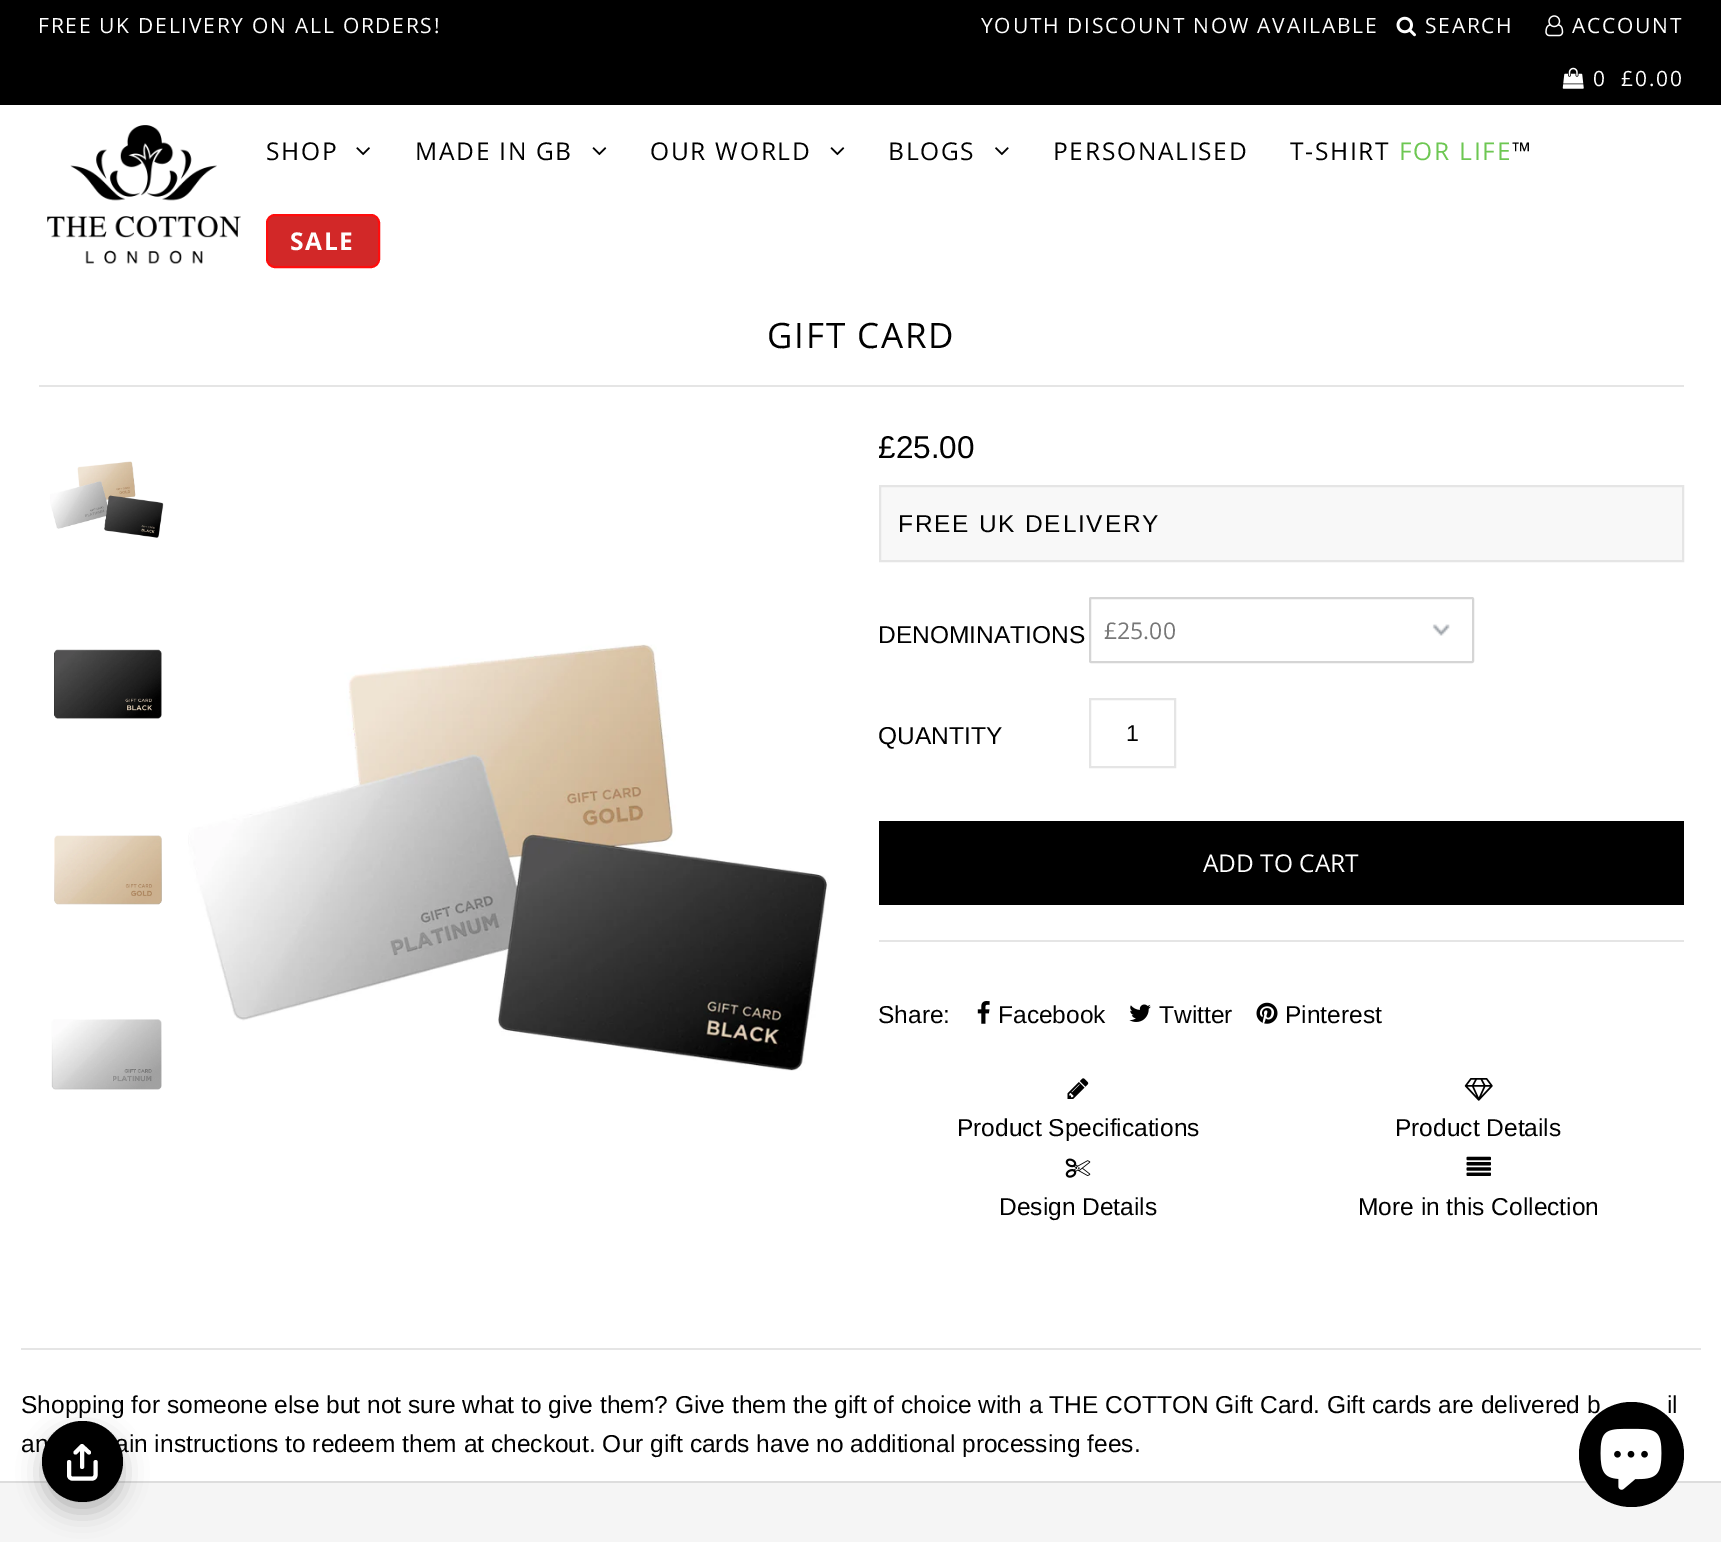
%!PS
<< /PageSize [1721 1542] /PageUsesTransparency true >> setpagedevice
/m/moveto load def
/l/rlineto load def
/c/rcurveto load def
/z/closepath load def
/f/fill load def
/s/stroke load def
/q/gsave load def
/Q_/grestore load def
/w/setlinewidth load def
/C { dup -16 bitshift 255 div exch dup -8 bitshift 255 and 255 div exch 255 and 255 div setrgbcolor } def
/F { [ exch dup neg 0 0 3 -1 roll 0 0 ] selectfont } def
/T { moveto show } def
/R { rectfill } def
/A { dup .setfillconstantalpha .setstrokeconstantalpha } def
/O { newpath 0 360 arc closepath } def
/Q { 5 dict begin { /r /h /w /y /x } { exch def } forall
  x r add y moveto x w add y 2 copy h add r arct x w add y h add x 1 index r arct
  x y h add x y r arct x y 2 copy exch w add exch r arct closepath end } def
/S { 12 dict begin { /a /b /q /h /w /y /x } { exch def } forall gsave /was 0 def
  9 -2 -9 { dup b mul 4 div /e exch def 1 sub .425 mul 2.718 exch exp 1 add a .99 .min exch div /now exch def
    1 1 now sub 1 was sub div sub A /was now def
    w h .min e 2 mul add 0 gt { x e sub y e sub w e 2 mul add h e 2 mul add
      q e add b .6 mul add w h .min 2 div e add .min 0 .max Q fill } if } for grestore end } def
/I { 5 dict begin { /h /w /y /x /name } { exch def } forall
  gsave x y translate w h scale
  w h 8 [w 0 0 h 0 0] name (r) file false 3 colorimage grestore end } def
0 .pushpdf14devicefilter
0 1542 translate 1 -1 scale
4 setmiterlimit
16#FFFFFF C
0 0 1721 1542 R
16#000000 C
0 0 1721 105 R
/OpenSans-Regular 21 F
16#FFFFFF C
38 33 m 1.75 0 (FREE UK DELIVERY ON ALL ORDERS!) ashow
981 33 m 1.75 0 (YOUTH DISCOUNT NOW AVAILABLE) ashow
(1.rgb) 1396 16 20 21 I
1425 33 m 1.75 0 (SEARCH) ashow
(2.rgb) 1545 15 19 22 I
1572 33 m 1.75 0 (ACCOUNT) ashow
(3.rgb) 1562 67 22 22 I
1593 86 m 1.75 0 (0) ashow
1621 86 m 1.75 0 (£0.00) ashow
(4.rgb) 47 125 194 139 I
/OpenSans-Regular 24.5 F
16#000000 C
266 160 m 1.75 0 (SHOP) ashow
(5.rgb) 356 147 14 9 I
415 160 m 1.75 0 (MADE IN GB) ashow
(6.rgb) 592 147 15 9 I
650 160 m 1.75 0 (OUR WORLD) ashow
(6.rgb) 830 147 15 9 I
888 160 m 1.75 0 (BLOGS) ashow
(7.rgb) 995 147 14 9 I
1053 160 m 1.75 0 (PERSONALISED) ashow
1290 160 m 1.75 0 (T-SHIRT) ashow
16#6DC752 C
1399 160 m 1.75 0 (FOR LIFE) ashow
16#000000 C
1512 160 m 1.75 0 (™) ashow
16#D22828 C
267 215 112 52 8 Q q f Q_
16#FF0D0D C
2 w
s
/OpenSans-Bold 24.5 F
16#FFFFFF C
290 250 m 1.75 0 (SALE) ashow
16#E5E5E5 C
39 385 1645 2 R
/OpenSans-Regular 35 F
16#000000 C
767 348 m 1.75 0 (GIFT CARD) ashow
(8.rgb) 50 461 114 77 I
(9.rgb) 54 649 108 70 I
(10.rgb) 54 835 108 70 I
(11.rgb) 51 1019 111 71 I
(12.rgb) 188 644 641 427 I
/LiberationSans-Regular 31.5 F
(£25.00) 878 458 T
16#F8F8F8 C
880 486 m 803 0 l 0 75 l -803 0 l z q f Q_
16#E5E5E5 C
s
/LiberationSans-Regular 24.5 F
16#000000 C
898 532 m 1.75 0 (FREE UK DELIVERY) ashow
16#E5E5E5 C
879 940 805 2 R
16#000000 C
(DENOMINATIONS) 878 643 T
(13.rgb) 1432 624 18 12 I
16#D5D5D5 C
1090 598 383 64 1 Q s
/OpenSans-Regular 23 F
16#777777 C
(£25.00) 1104 639 T
/LiberationSans-Regular 24.5 F
16#000000 C
(QUANTITY) 878 744 T
16#E5E5E5 C
1090 699 85 68 rectstroke
/LiberationSans-Regular 23 F
16#000000 C
(1) 1126 741 T
879 821 805 84 R
/OpenSans-Regular 24.5 F
16#FFFFFF C
(ADD TO CART) 1203 872 T
/LiberationSans-Regular 24.5 F
16#000000 C
(Share:) 878 1023 T
(14.rgb) 977 1001 13 23 I
(Facebook) 998 1023 T
(15.rgb) 1129 1004 22 18 I
(Twitter) 1159 1023 T
(16.rgb) 1256 1002 22 22 I
(Pinterest) 1285 1023 T
(17.rgb) 1067 1078 22 21 I
(Product Specifications) 957 1136 T
(18.rgb) 1464 1078 29 23 I
(Product Details) 1395 1136 T
(19.rgb) 1065 1158 26 20 I
(Design Details) 999 1215 T
(20.rgb) 1466 1156 25 20 I
(More in this Collection) 1358 1215 T
16#E5E5E5 C
21 1348 1680 2 R
16#000000 C
(Shopping for someone else but not sure what to give them? Give them the gift of choice with a THE COTTON Gift Card. Gift cards are delivered b) 21 1413 T
(il) 1667 1413 T
(an) 21 1452 T
(ain instructions to redeem them at checkout. Our gift cards have no additional processing fees.) 115 1452 T
16#F5F5F5 C
0 1483 1721 59 R
16#DDDDDD C
0 1481 1721 2 R
16#000000 C
42 1432 81 80 40 12 .25 S
82.5 1461.5 40.5 O f
16#FFFFFF C
4 w
1 setlinecap
1 setlinejoin
69 1462 m 0 13 l 0 2 1.5 3.5 3 3.5 c 20.5 0 l 1.5 0 3 -1.5 3 -3.5 c 0 -13 l 89 1452.5 m -7 -6.5 l -6.5 6.5 l 82 1446 m 0 21 l s
16#000000 C
1631.5 1454.5 52.5 O f
(21.rgb) 1600 1428 62 62 I
.poppdf14devicefilter showpage
